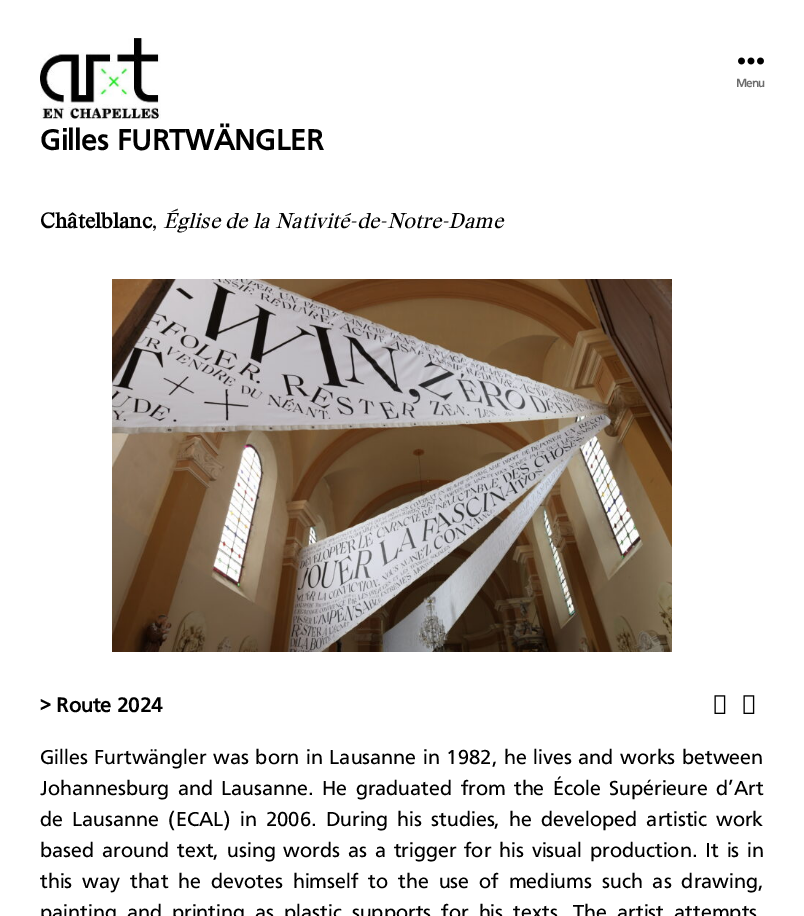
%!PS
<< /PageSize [804 916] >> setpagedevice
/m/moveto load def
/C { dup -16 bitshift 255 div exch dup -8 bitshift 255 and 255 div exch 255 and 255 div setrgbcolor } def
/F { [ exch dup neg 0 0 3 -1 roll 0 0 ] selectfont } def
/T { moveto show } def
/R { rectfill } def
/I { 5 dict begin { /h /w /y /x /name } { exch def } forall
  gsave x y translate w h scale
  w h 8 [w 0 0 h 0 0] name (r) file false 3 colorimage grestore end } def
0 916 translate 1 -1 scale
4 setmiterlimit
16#FFFFFF C
0 0 804 916 R
(1.rgb) 40 38 121 82 I
(2.rgb) 738 57 26 8 I
/Frutiger-Bold 12 F
16#6D6D6D C
736 87 m -.5 0 (Menu) ashow
/Frutiger-Bold 30 F
16#000000 C
(Gilles FURTWÄNGLER) 40 150 T
/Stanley-Bold 21 F
(Châtelblanc) 40 228 T
/Stanley-Regular 21 F
(,) 152 228 T
/Stanley-Italic 21 F
(Église de la Nativité-de-Notre-Dame) 163 228 T
(3.rgb) 112 279 560 373 I
/Frutiger-Bold 21 F
(> Route 2024) 40 712 T
(4.rgb) 714 695 12 19 I
(4.rgb) 743 695 12 19 I
/Frutiger-Regular 21 F
40 764 m .8 0 32 (Gilles Furtwängler was born in Lausanne in 1982, he lives and works between) widthshow
40 795 m 2.5 0 32 (Johannesburg and Lausanne. He graduated from the École Supérieure d’Art) widthshow
40 826 m 3.25 0 32 (de Lausanne \(ECAL\) in 2006. During his studies, he developed artistic work) widthshow
40 857 m 2.1 0 32 (based around text, using words as a trigger for his visual production. It is in) widthshow
40 888 m 4.1 0 32 (this way that he devotes himself to the use of mediums such as drawing,) widthshow
40 919 m 4.25 0 32 (painting and printing as plastic supports for his texts. The artist attempts) widthshow
showpage
